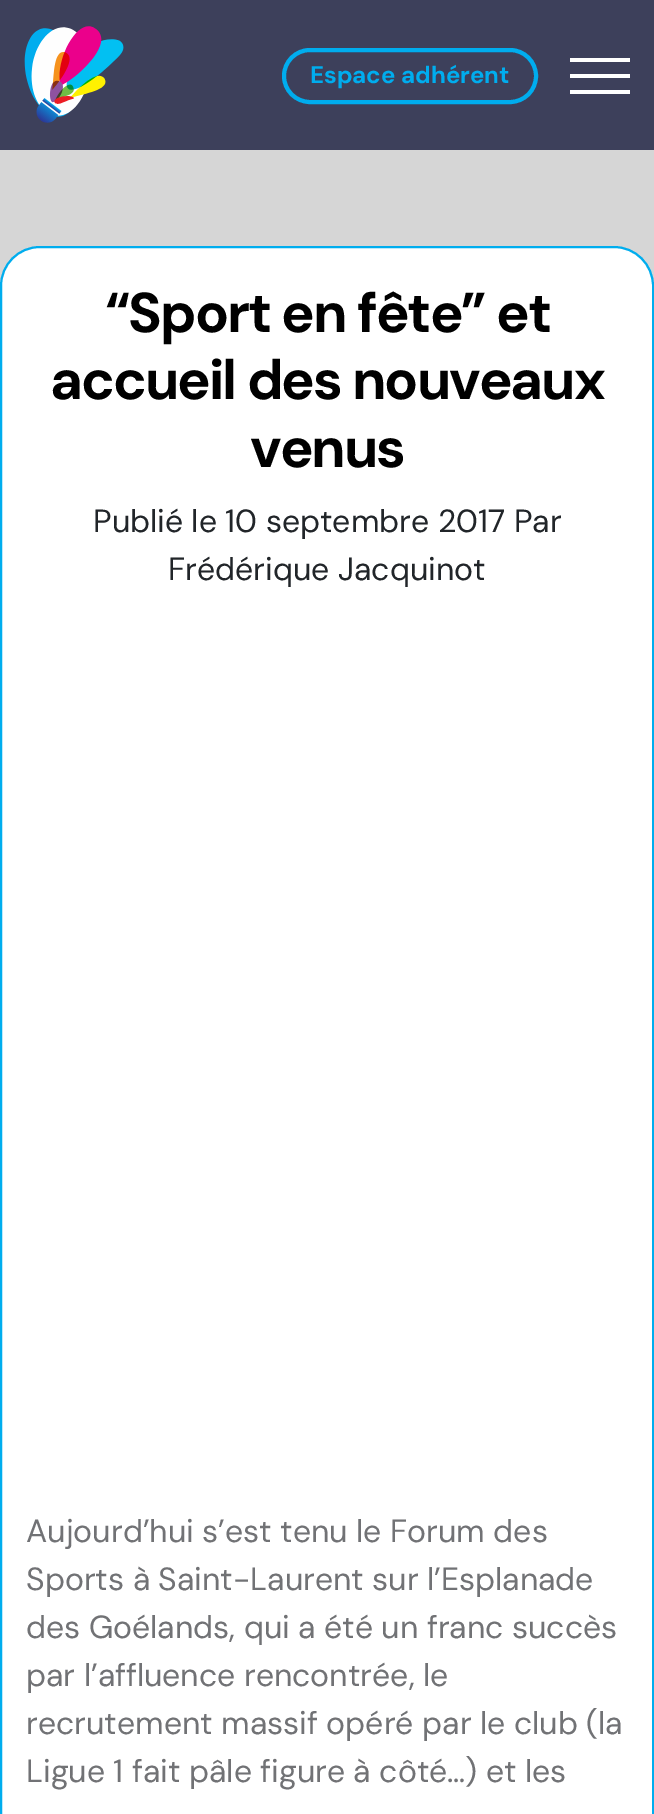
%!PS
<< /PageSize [654 1814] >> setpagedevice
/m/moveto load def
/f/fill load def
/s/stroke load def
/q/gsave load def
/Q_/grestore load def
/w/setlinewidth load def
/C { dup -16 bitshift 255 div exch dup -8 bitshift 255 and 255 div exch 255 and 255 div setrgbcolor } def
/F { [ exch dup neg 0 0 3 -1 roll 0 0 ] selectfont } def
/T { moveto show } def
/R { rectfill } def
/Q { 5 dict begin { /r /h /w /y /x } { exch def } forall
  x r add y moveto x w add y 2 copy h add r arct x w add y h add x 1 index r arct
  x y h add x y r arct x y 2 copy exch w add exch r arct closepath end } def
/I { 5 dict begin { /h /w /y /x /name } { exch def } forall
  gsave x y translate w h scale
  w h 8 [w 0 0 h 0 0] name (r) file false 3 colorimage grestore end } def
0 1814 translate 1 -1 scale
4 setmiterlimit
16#D6D6D6 C
0 0 654 1814 R
16#3D405B C
0 0 654 150 R
(1.rgb) 24 26 100 97 I
16#00ADEE C
4 w
284 50 252 52 26 Q s
/DMSans-Bold 24 F
(Espace adhérent) 310 83 T
16#FFFFFF C
570 74 60 4 R
570 58 60 4 R
570 90 60 4 R
1 247 652 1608 39 Q q f Q_
16#00ADEE C
2 w
s
/DMSans-Bold 56 F
16#000000 C
105 332 m -2 0 (“Sport en fête” et) ashow
50 399 m -2 0 (accueil des nouveaux) ashow
250 467 m -2 0 (venus) ashow
/DMSans-Regular 32 F
16#212529 C
(Publié le 10 septembre 2017 Par) 93 532 T
(Frédérique Jacquinot) 168 580 T
16#717275 C
(Aujourd’hui s’est tenu le Forum des) 26 1542 T
(Sports à Saint-Laurent sur l’Esplanade) 26 1590 T
(des Goélands, qui a été un franc succès) 26 1638 T
(par l’affluence rencontrée, le) 26 1686 T
(recrutement massif opéré par le club \(la) 26 1734 T
(Ligue 1 fait pâle figure à côté…\) et les) 26 1782 T
showpage
